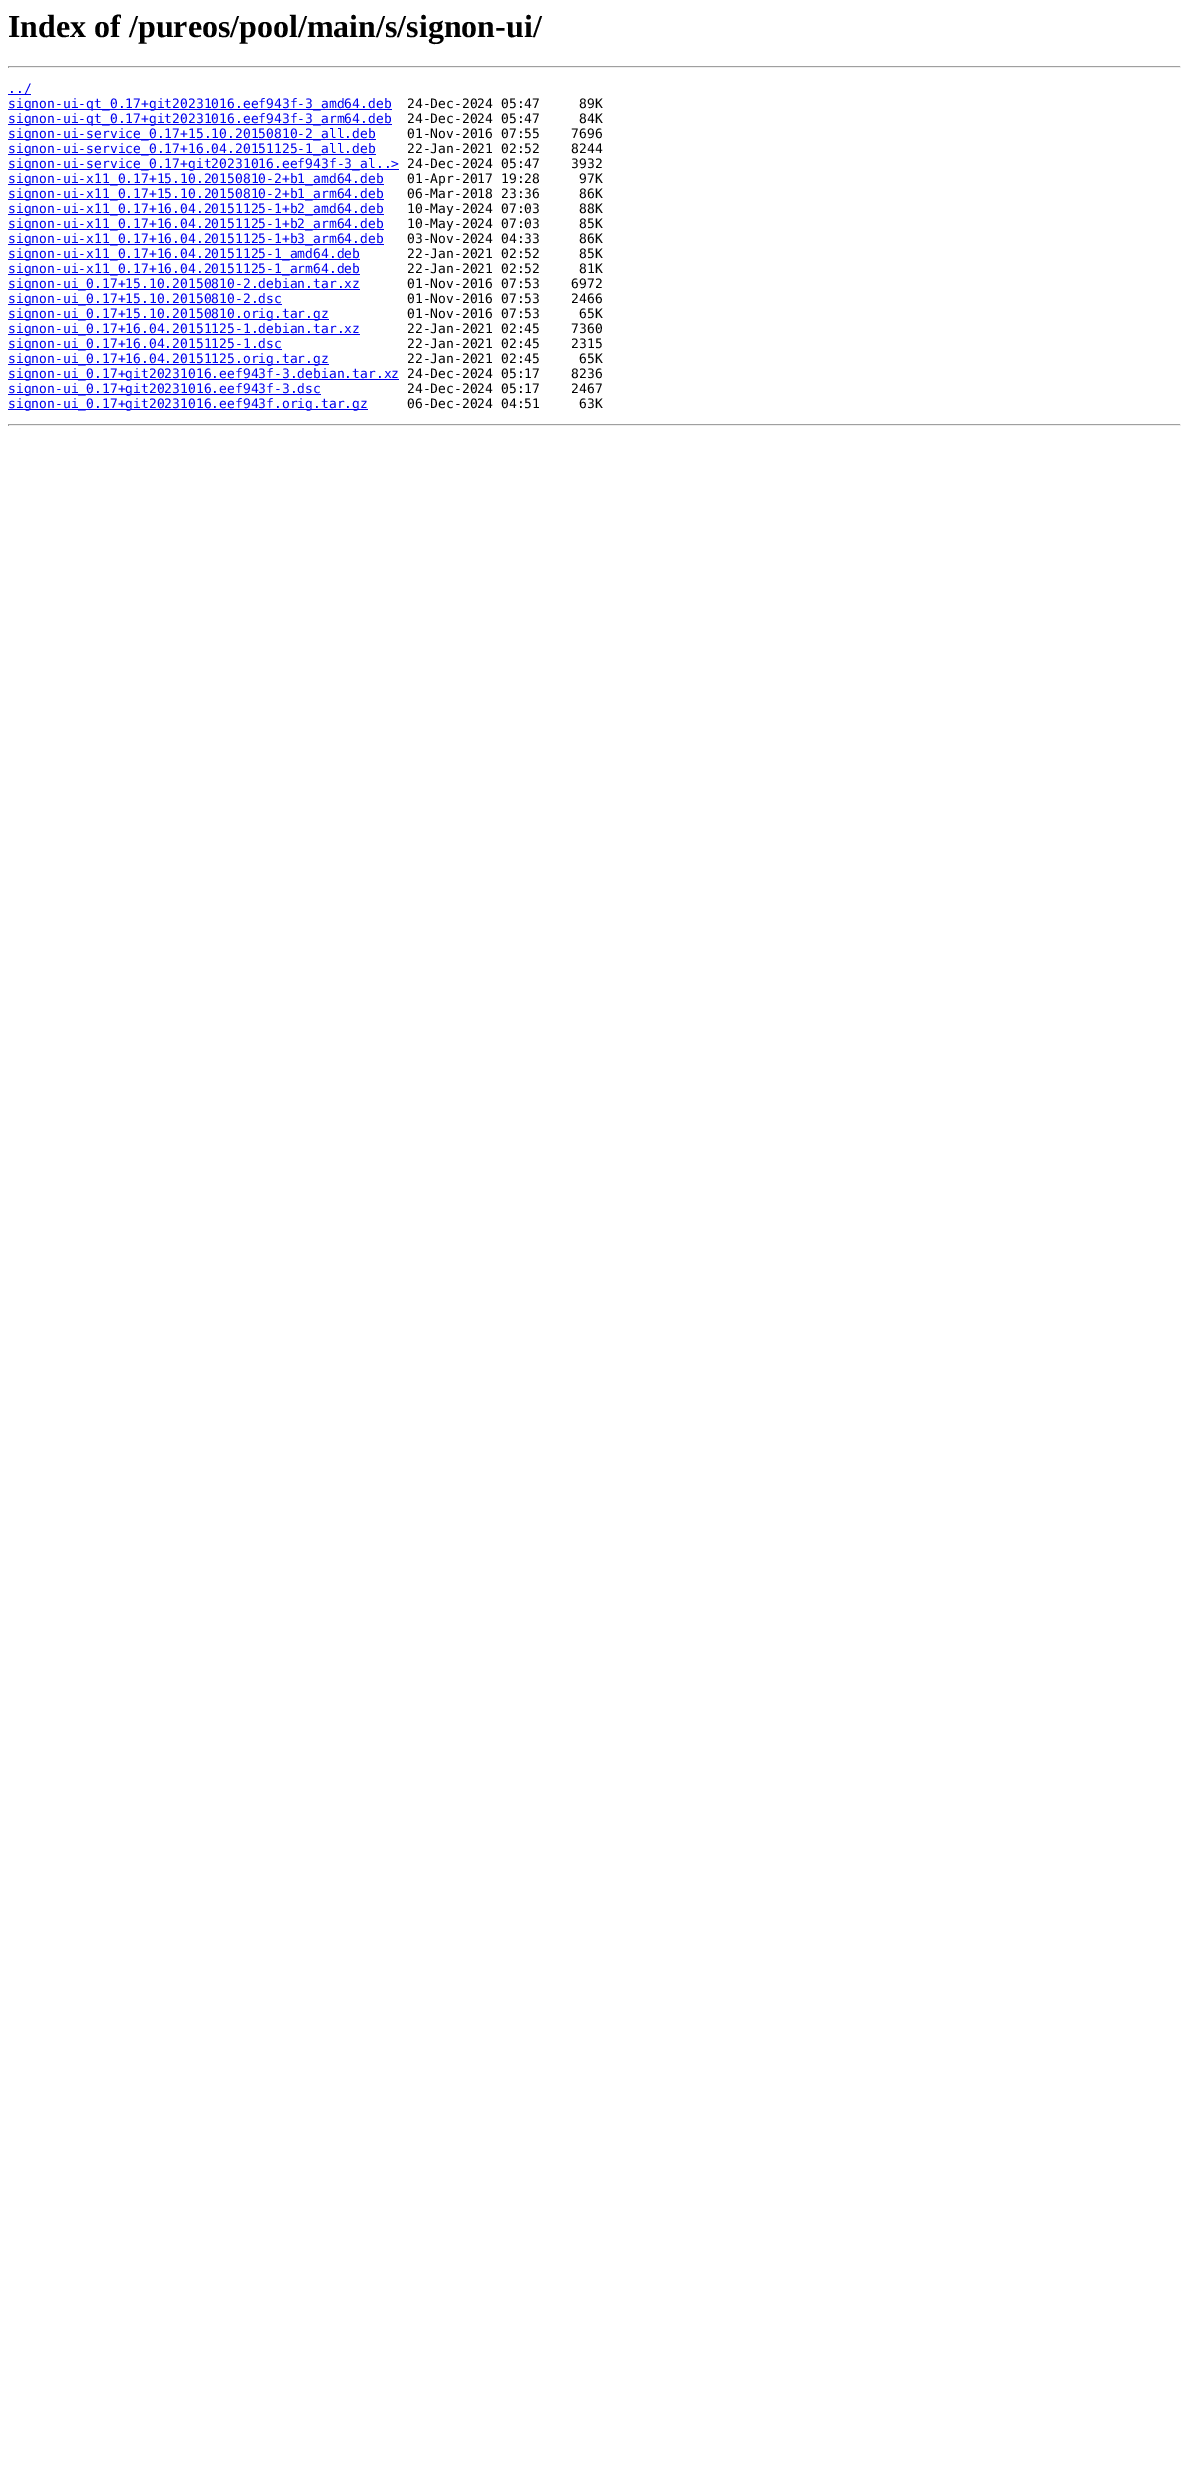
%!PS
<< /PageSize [1189 2488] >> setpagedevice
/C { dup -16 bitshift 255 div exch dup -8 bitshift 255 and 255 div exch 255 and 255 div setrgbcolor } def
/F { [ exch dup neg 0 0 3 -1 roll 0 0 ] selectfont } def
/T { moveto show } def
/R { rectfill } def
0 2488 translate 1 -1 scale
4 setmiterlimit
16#FFFFFF C
0 0 1189 2488 R
/LiberationSerif-Bold 32 F
16#000000 C
(Index of /pureos/pool/main/s/signon-ui/) 8 37 T
16#9F9F9F C
8 66 1173 1 R
16#EEEEEE C
1180 66 1 2 R
8 67 1173 1 R
16#9F9F9F C
8 66 1 2 R
16#0000EE C
8 94 23 1 R
/DejaVuSansMono-Regular 13 F
(../) 8 93 T
8 109 384 1 R
(signon-ui-qt_0.17+git20231016.eef943f-3_amd64.deb) 8 108 T
16#000000 C
(24-Dec-2024 05:47     89K) 407 108 T
16#0000EE C
8 124 384 1 R
(signon-ui-qt_0.17+git20231016.eef943f-3_arm64.deb) 8 123 T
16#000000 C
(24-Dec-2024 05:47     84K) 407 123 T
16#0000EE C
8 139 368 1 R
(signon-ui-service_0.17+15.10.20150810-2_all.deb) 8 138 T
16#000000 C
(01-Nov-2016 07:55    7696) 407 138 T
16#0000EE C
8 154 368 1 R
(signon-ui-service_0.17+16.04.20151125-1_all.deb) 8 153 T
16#000000 C
(22-Jan-2021 02:52    8244) 407 153 T
16#0000EE C
8 169 391 1 R
(signon-ui-service_0.17+git20231016.eef943f-3_al..>) 8 168 T
16#000000 C
(24-Dec-2024 05:47    3932) 407 168 T
16#0000EE C
8 184 376 1 R
(signon-ui-x11_0.17+15.10.20150810-2+b1_amd64.deb) 8 183 T
16#000000 C
(01-Apr-2017 19:28     97K) 407 183 T
16#0000EE C
8 199 376 1 R
(signon-ui-x11_0.17+15.10.20150810-2+b1_arm64.deb) 8 198 T
16#000000 C
(06-Mar-2018 23:36     86K) 407 198 T
16#0000EE C
8 214 376 1 R
(signon-ui-x11_0.17+16.04.20151125-1+b2_amd64.deb) 8 213 T
16#000000 C
(10-May-2024 07:03     88K) 407 213 T
16#0000EE C
8 229 376 1 R
(signon-ui-x11_0.17+16.04.20151125-1+b2_arm64.deb) 8 228 T
16#000000 C
(10-May-2024 07:03     85K) 407 228 T
16#0000EE C
8 244 376 1 R
(signon-ui-x11_0.17+16.04.20151125-1+b3_arm64.deb) 8 243 T
16#000000 C
(03-Nov-2024 04:33     86K) 407 243 T
16#0000EE C
8 259 352 1 R
(signon-ui-x11_0.17+16.04.20151125-1_amd64.deb) 8 258 T
16#000000 C
(22-Jan-2021 02:52     85K) 407 258 T
16#0000EE C
8 274 352 1 R
(signon-ui-x11_0.17+16.04.20151125-1_arm64.deb) 8 273 T
16#000000 C
(22-Jan-2021 02:52     81K) 407 273 T
16#0000EE C
8 289 352 1 R
(signon-ui_0.17+15.10.20150810-2.debian.tar.xz) 8 288 T
16#000000 C
(01-Nov-2016 07:53    6972) 407 288 T
16#0000EE C
8 304 274 1 R
(signon-ui_0.17+15.10.20150810-2.dsc) 8 303 T
16#000000 C
(01-Nov-2016 07:53    2466) 407 303 T
16#0000EE C
8 319 321 1 R
(signon-ui_0.17+15.10.20150810.orig.tar.gz) 8 318 T
16#000000 C
(01-Nov-2016 07:53     65K) 407 318 T
16#0000EE C
8 334 352 1 R
(signon-ui_0.17+16.04.20151125-1.debian.tar.xz) 8 333 T
16#000000 C
(22-Jan-2021 02:45    7360) 407 333 T
16#0000EE C
8 349 274 1 R
(signon-ui_0.17+16.04.20151125-1.dsc) 8 348 T
16#000000 C
(22-Jan-2021 02:45    2315) 407 348 T
16#0000EE C
8 364 321 1 R
(signon-ui_0.17+16.04.20151125.orig.tar.gz) 8 363 T
16#000000 C
(22-Jan-2021 02:45     65K) 407 363 T
16#0000EE C
8 379 391 1 R
(signon-ui_0.17+git20231016.eef943f-3.debian.tar.xz) 8 378 T
16#000000 C
(24-Dec-2024 05:17    8236) 407 378 T
16#0000EE C
8 394 313 1 R
(signon-ui_0.17+git20231016.eef943f-3.dsc) 8 393 T
16#000000 C
(24-Dec-2024 05:17    2467) 407 393 T
16#0000EE C
8 409 360 1 R
(signon-ui_0.17+git20231016.eef943f.orig.tar.gz) 8 408 T
16#000000 C
(06-Dec-2024 04:51     63K) 407 408 T
16#9F9F9F C
8 424 1173 1 R
16#EEEEEE C
1180 424 1 2 R
8 425 1173 1 R
16#9F9F9F C
8 424 1 2 R
showpage
